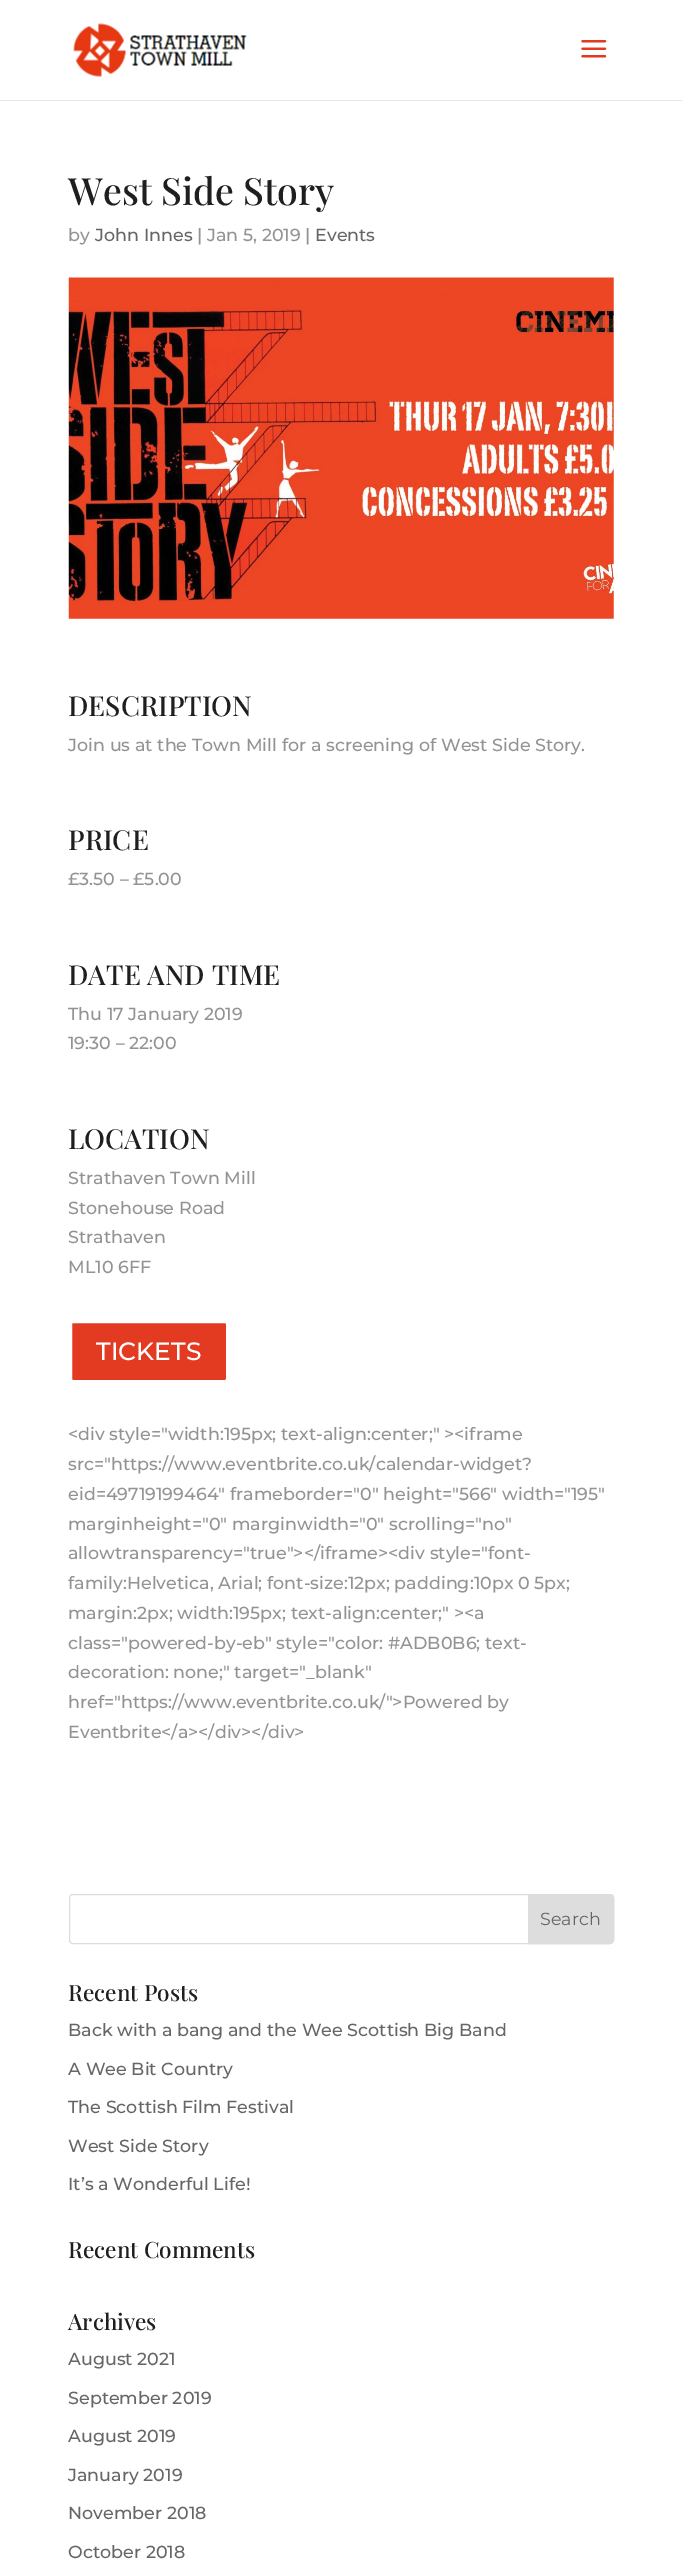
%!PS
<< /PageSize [682 2574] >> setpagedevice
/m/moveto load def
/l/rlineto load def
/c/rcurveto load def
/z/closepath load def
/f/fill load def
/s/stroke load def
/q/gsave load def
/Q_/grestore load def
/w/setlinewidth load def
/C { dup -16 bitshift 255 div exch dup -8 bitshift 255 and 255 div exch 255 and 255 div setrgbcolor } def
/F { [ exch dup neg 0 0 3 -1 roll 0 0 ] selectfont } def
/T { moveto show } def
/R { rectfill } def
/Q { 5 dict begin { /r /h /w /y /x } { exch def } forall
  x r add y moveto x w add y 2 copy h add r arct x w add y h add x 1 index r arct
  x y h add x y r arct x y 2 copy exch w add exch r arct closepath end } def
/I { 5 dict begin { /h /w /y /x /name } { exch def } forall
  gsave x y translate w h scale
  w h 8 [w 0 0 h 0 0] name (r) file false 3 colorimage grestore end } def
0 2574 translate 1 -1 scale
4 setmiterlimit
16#FFFFFF C
0 0 682 2574 R
16#E6E6E6 C
0 100 m 0 1 l 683 0 l 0 -100 l -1 0 l 0 99 l z f
(1.rgb) 73 23 174 54 I
(2.rgb) 581 40 26 18 I
/PlayfairDisplay-Medium 37.5 F
16#1F1F1F C
(West Side Story) 68 205 T
/Montserrat-Medium 17.5 F
16#939393 C
(by) 68 241 T
16#666666 C
(John Innes) 95 241 T
16#939393 C
(| Jan 5, 2019 |) 197 241 T
16#666666 C
(Events) 315 241 T
(3.rgb) 68 277 546 342 I
/PlayfairDisplay-Medium 27.5 F
16#1F1F1F C
(DESCRIPTION) 68 716 T
/Montserrat-Medium 17.5 F
16#939393 C
(Join us at the Town Mill for a screening of West Side Story.) 68 751 T
/PlayfairDisplay-Medium 27.5 F
16#1F1F1F C
(PRICE) 68 850 T
/Montserrat-Medium 17.5 F
16#939393 C
(£3.50 – £5.00) 68 885 T
/PlayfairDisplay-Medium 27.5 F
16#1F1F1F C
(DATE AND TIME) 68 985 T
/Montserrat-Medium 17.5 F
16#939393 C
(Thu 17 January 2019) 68 1020 T
(19:30 – 22:00) 68 1049 T
/PlayfairDisplay-Medium 27.5 F
16#1F1F1F C
(LOCATION) 68 1149 T
/Montserrat-Medium 17.5 F
16#939393 C
(Strathaven Town Mill) 68 1184 T
(Stonehouse Road) 68 1214 T
(Strathaven) 68 1243 T
(ML10 6FF) 68 1273 T
16#E33A22 C
70.5 1321.5 157 60 2.5 Q q f Q_
16#FFFFFF C
3 w
s
/Montserrat-Medium 25 F
(TICKETS) 96 1360 T
/Montserrat-Medium 17.5 F
16#939393 C
(<div style="width:195px; text-align:center;" ><iframe) 68 1440 T
(src="https://www.eventbrite.co.uk/calendar-widget?) 68 1470 T
(eid=49719199464" frameborder="0" height="566" width="195") 68 1500 T
(marginheight="0" marginwidth="0" scrolling="no") 68 1530 T
(allowtransparency="true"></iframe><div style="font-) 68 1559 T
(family:Helvetica, Arial; font-size:12px; padding:10px 0 5px;) 68 1589 T
(margin:2px; width:195px; text-align:center;" ><a) 68 1619 T
(class="powered-by-eb" style="color: #ADB0B6; text-) 68 1649 T
(decoration: none;" target="_blank") 68 1678 T
(href="https://www.eventbrite.co.uk/">Powered by) 68 1708 T
(Eventbrite</a></div></div>) 68 1738 T
16#DDDDDD C
1 w
69.5 1894.5 544 49 3.5 Q s
528.5 1894.5 m 81.5 0 l 2 0 3.5 1.5 3.5 3.5 c 0 42 l 0 2 -1.5 3.5 -3.5 3.5 c -81.5 0 l z q f Q_
s
/Montserrat-Regular 17.5 F
16#666666 C
(Search) 540 1925 T
/PlayfairDisplay-Medium 22.5 F
16#1F1F1F C
(Recent Posts) 68 2001 T
/Montserrat-Medium 17.5 F
16#666666 C
(Back with a bang and the Wee Scottish Big Band) 68 2036 T
(A Wee Bit Country) 68 2075 T
(The Scottish Film Festival) 68 2113 T
(West Side Story) 68 2152 T
(It’s a Wonderful Life!) 68 2190 T
/PlayfairDisplay-Medium 22.5 F
16#1F1F1F C
(Recent Comments) 68 2258 T
(Archives) 68 2330 T
/Montserrat-Medium 17.5 F
16#666666 C
(August 2021) 68 2365 T
(September 2019) 68 2404 T
(August 2019) 68 2442 T
(January 2019) 68 2481 T
(November 2018) 68 2519 T
(October 2018) 68 2558 T
showpage
